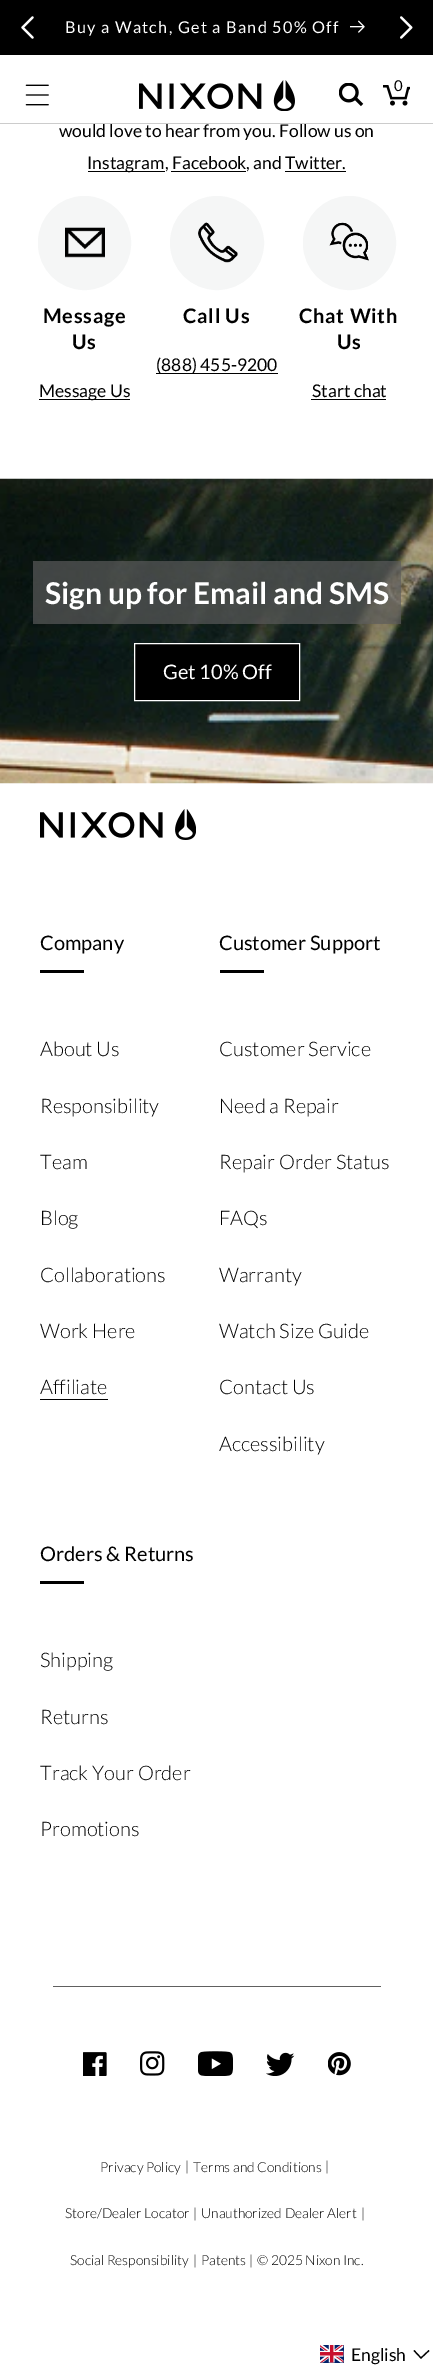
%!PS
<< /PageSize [433 2369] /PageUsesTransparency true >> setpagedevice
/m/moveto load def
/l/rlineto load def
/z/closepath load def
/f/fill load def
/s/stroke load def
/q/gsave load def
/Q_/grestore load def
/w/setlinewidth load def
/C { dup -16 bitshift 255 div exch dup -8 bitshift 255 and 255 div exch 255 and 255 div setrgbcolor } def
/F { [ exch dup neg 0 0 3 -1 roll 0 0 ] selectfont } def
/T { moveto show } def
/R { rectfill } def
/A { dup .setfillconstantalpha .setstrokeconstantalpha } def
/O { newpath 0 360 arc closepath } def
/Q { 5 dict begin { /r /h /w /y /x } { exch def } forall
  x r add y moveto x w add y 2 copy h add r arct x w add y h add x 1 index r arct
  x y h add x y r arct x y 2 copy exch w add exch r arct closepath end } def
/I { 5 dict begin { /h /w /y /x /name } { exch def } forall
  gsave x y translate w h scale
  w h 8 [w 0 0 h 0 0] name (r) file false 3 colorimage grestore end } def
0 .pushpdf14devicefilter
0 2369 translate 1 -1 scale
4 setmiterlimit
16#FFFFFF C
0 0 433 2369 R
16#000000 C
0 0 433 55 R
(1.rgb) 21 16 13 23 I
/Lato-Regular 16.25 F
16#FFFFFF C
65 33 m 1.25 0 (Buy a Watch, Get a Band 50% Off) ashow
(2.rgb) 350 20 15 13 I
(3.rgb) 400 16 13 23 I
16#CCCCCC C
0 123 433 1 R
(4.rgb) 25 84 24 22 I
(5.rgb) 139 80 156 31 I
(6.rgb) 339 83 25 24 I
(7.rgb) 383 85 27 21 I
/Lato-Regular 15 F
16#000000 C
(0) 394 91 T
/Lato-Regular 17.5 F
(would love to hear from you. Follow us on) 59 137 T
88 171 77 1 R
(Instagram) 87 169 T
(, Facebook) 165 169 T
(, and Twitter.) 246 169 T
171 171 75 1 R
285 171 61 1 R
16#F5F6F6 C
38.5 196.5 92 93 46 Q q f Q_
s
(8.rgb) 65 227 40 31 I
/Lato-Bold 20 F
16#000000 C
43 323 m .75 0 (Message) ashow
72 349 m .75 0 (Us) ashow
39 399 91 1 R
/Lato-Regular 17.5 F
(Message Us) 39 397 T
16#F5F6F6 C
217 243 46.5 O q f Q_
s
(9.rgb) 198 222 40 41 I
/Lato-Bold 20 F
16#000000 C
183 323 m .75 0 (Call Us) ashow
156 373 122 1 R
/Lato-Regular 17.5 F
(\(888\) 455-9200) 156 371 T
16#F5F6F6 C
303.5 196.5 92 93 46 Q q f Q_
s
(10.rgb) 329 222 40 39 I
/Lato-Bold 20 F
16#000000 C
299 323 m .75 0 (Chat With) ashow
337 349 m .75 0 (Us) ashow
/Lato-Regular 17.5 F
(Start chat) 312 397 T
311 399 75 1 R
(11.rgb) 0 478 433 306 I
0.68 A
16#5C5C5C C
33 561 368 63 R
/Lato-Bold 30 F
1 A
16#FFFFFF C
(Sign up for Email and SMS) 45 604 T
16#000000 C
134.5 643.5 m 165 0 l 0 57 l -165 0 l z q f Q_
16#FFFFFF C
s
/Lato-Regular 20 F
(Get 10% Off) 163 679 T
(12.rgb) 40 809 156 31 I
16#000000 C
(Company) 40 950 T
40 970 44 3 R
/Lato-Light 20 F
(About Us) 40 1056 T
(Responsibility) 40 1113 T
(Team) 40 1169 T
(Blog) 40 1225 T
(Collaborations) 40 1282 T
(Work Here) 40 1338 T
(Affiliate) 40 1394 T
40 1399 68 1 R
/Lato-Regular 20 F
(Customer Support) 219 950 T
220 970 44 3 R
/Lato-Light 20 F
(Customer Service) 219 1056 T
(Need a Repair) 219 1113 T
(Repair Order Status) 219 1169 T
(FAQs) 219 1225 T
(Warranty) 219 1282 T
(Watch Size Guide) 219 1338 T
(Contact Us) 219 1394 T
(Accessibility) 219 1451 T
/Lato-Regular 20 F
(Orders & Returns) 40 1561 T
40 1581 44 3 R
/Lato-Light 20 F
(Shipping) 40 1667 T
(Returns) 40 1724 T
(Track Your Order) 40 1780 T
(Promotions) 40 1836 T
16#606060 C
53 1986 328 1 R
(13.rgb) 83 2052 24 24 I
(14.rgb) 140 2051 25 25 I
(15.rgb) 198 2051 35 25 I
(16.rgb) 266 2052 29 24 I
(17.rgb) 328 2052 23 24 I
/Lato-Light 13.75 F
16#000000 C
(Privacy Policy) 100 2172 T
(|) 185 2171 T
(Terms and Conditions) 193 2172 T
(|) 325 2171 T
(Store/Dealer Locator) 65 2218 T
(|) 193 2218 T
(Unauthorized Dealer Alert) 201 2218 T
(|) 361 2218 T
(Social Responsibility) 70 2265 T
(|) 193 2265 T
(Patents) 201 2265 T
(|) 249 2265 T
(© 2025 Nixon Inc.) 257 2265 T
(18.rgb) 320 2345 24 18 I
/Lato-Regular 17.5 F
(English) 351 2361 T
1.2 w
414 2350.5 m 7 7.5 l 8 -7.5 l s
.poppdf14devicefilter showpage
